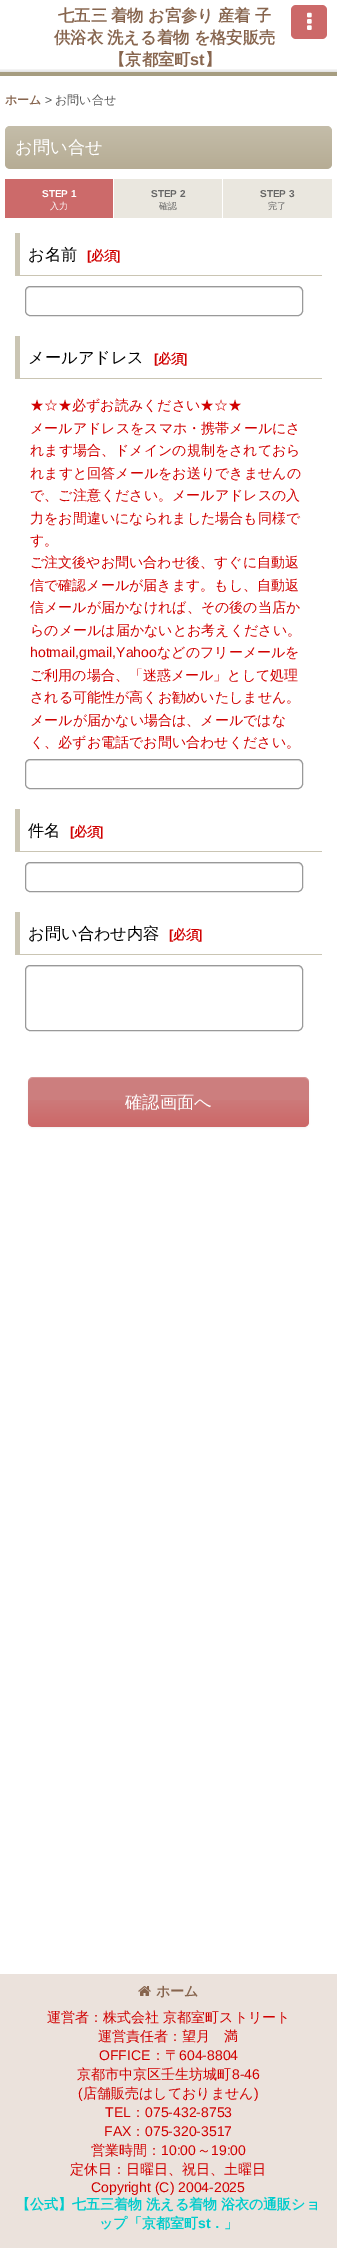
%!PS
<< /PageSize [337 2248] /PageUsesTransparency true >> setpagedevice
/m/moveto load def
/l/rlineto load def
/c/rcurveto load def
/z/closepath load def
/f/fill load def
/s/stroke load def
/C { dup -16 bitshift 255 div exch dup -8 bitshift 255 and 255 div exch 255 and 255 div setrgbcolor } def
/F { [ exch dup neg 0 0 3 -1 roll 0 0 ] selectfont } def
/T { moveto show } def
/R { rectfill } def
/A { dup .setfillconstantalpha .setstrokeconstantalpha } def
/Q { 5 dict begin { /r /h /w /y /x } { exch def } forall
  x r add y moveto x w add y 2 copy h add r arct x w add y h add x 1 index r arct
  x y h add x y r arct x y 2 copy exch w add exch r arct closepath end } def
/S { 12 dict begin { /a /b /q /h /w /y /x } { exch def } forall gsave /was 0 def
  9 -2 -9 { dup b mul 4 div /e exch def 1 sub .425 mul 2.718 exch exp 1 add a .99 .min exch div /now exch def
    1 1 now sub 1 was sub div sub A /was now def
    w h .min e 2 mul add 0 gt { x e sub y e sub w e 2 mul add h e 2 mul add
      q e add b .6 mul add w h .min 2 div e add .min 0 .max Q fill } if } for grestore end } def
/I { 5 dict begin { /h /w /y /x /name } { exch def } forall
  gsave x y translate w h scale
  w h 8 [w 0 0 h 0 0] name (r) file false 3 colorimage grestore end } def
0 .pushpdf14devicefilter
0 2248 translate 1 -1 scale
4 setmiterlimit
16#FFFFFF C
0 0 337 2248 R
(1.rgb) 0 69 337 7 I
/WenQuanYiZenHei-Bold 16.25 F
16#87654E C
58 21 m -.5 0 32 (七五三 着物 お宮参り 産着 子) widthshow
54 43 m -.5 0 32 (供浴衣 洗える着物 を格安販売) widthshow
(【京都室町) 109 65 T
/LiberationSans-Bold 16.25 F
(st) 190 65 T
/WenQuanYiZenHei-Bold 16.25 F
(】) 205 65 T
16#CC6969 C
291 5 36 34 5 Q f
(2.rgb) 307 12 5 18 I
/WenQuanYiZenHei-Bold 12 F
16#87654E C
(ホーム) 5 104 T
/LiberationSans-Regular 12 F
16#555555 C
(>) 45 104 T
/WenQuanYiZenHei-Medium 12 F
(お問い合せ) 55 104 T
(3.rgb) 5 126 327 43 I
/WenQuanYiZenHei-Medium 17.25 F
16#FFFFFF C
(お問い合せ) 15 153 T
16#CC6A6A C
5 179 108 39 R
/LiberationSans-Bold 10 F
16#FFFFFF C
(STEP 1) 42 197 T
/WenQuanYiZenHei-Medium 9 F
(入力) 50 209 T
16#EAE7DF C
114 179 108 39 R
/LiberationSans-Bold 10 F
16#666666 C
(STEP 2) 151 197 T
/WenQuanYiZenHei-Medium 9 F
(確認) 159 209 T
16#EAE7DF C
223 179 109 39 R
/LiberationSans-Bold 10 F
16#666666 C
(STEP 3) 260 197 T
/WenQuanYiZenHei-Medium 9 F
(完了) 268 209 T
16#CAC5B3 C
15 275 307 1 R
15 233 5 43 R
/WenQuanYiZenHei-Medium 16.25 F
16#000000 C
(お名前) 28 260 T
/LiberationSans-Bold 13 F
16#D00000 C
([) 87 260 T
/WenQuanYiZenHei-Bold 13 F
(必須) 91 260 T
/LiberationSans-Bold 13 F
(]) 116 260 T
16#ECECEC C
30 288 m 268 0 l 2 0 4 2 4 4 c 0 -3 -1 -5 -4 -5 c -268 0 l -3 0 -4 2 -4 5 c 0 -2 2 -4 4 -4 c z f
16#999999 C
25.5 286.5 277 29 4.5 Q s
16#CAC5B3 C
15 378 307 1 R
15 336 5 43 R
/WenQuanYiZenHei-Medium 16.25 F
16#000000 C
(メールアドレス) 28 363 T
/LiberationSans-Bold 13 F
16#D00000 C
([) 154 363 T
/WenQuanYiZenHei-Bold 13 F
(必須) 158 363 T
/LiberationSans-Bold 13 F
(]) 183 363 T
/WenQuanYiZenHei-Medium 14 F
(★☆★必ずお読みください★☆★) 30 410 T
(メールアドレスをスマホ・携帯メールにさ) 30 433 T
(れます場合、ドメインの規制をされておら) 30 455 T
(れますと回答メールをお送りできませんの) 30 478 T
(で、ご注意ください。メールアドレスの入) 30 500 T
(力をお間違いになられました場合も同様で) 30 523 T
(す。) 30 545 T
(ご注文後やお問い合わせ後、すぐに自動返) 30 567 T
(信で確認メールが届きます。もし、自動返) 30 590 T
(信メールが届かなければ、その後の当店か) 30 612 T
(らのメールは届かないとお考えください。) 30 635 T
/LiberationSans-Regular 14 F
(hotmail,gmail,Yahoo) 30 657 T
/WenQuanYiZenHei-Medium 14 F
(などのフリーメールを) 157 657 T
(ご利用の場合、「迷惑メール」として処理) 30 680 T
(される可能性が高くお勧めいたしません。) 30 702 T
(メールが届かない場合は、メールではな) 30 725 T
(く、必ずお電話でお問い合わせください。) 30 747 T
16#ECECEC C
30 761 m 268 0 l 2 0 4 2 4 4 c 0 -3 -1 -5 -4 -5 c -268 0 l -3 0 -4 2 -4 5 c 0 -2 2 -4 4 -4 c z f
16#999999 C
25.5 759.5 277 29 4.5 Q s
16#CAC5B3 C
15 851 307 1 R
15 809 5 43 R
/WenQuanYiZenHei-Medium 16.25 F
16#000000 C
(件名) 28 836 T
/LiberationSans-Bold 13 F
16#D00000 C
([) 70 836 T
/WenQuanYiZenHei-Bold 13 F
(必須) 74 836 T
/LiberationSans-Bold 13 F
(]) 99 836 T
16#ECECEC C
30 864 m 268 0 l 2 0 4 2 4 4 c 0 -3 -1 -5 -4 -5 c -268 0 l -3 0 -4 2 -4 5 c 0 -2 2 -4 4 -4 c z f
16#999999 C
25.5 862.5 277 29 4.5 Q s
16#CAC5B3 C
15 954 307 1 R
15 912 5 43 R
/WenQuanYiZenHei-Medium 16.25 F
16#000000 C
(お問い合わせ内容) 28 939 T
/LiberationSans-Bold 13 F
16#D00000 C
([) 169 939 T
/WenQuanYiZenHei-Bold 13 F
(必須) 173 939 T
/LiberationSans-Bold 13 F
(]) 198 939 T
16#ECECEC C
30 967 m 268 0 l 2 0 4 2 4 4 c 0 -3 -1 -5 -4 -5 c -268 0 l -3 0 -4 2 -4 5 c 0 -2 2 -4 4 -4 c z f
16#999999 C
25.5 965.5 277 65 4.5 Q s
16#000000 C
28 1078 281 50 5 1 .05 S
16#CC7E7E C
28 1077 281 50 5 Q f
(4.rgb) 28 1100 281 27 I
0.2 A
16#FFFFFF C
33 1078 m 271 0 l 3 0 5 2 5 5 c 0 -1 l 0 -3 -2 -5 -5 -5 c -271 0 l -3 0 -5 2 -5 5 c 0 1 l 0 -3 2 -5 5 -5 c z f
/WenQuanYiZenHei-Medium 17.25 F
1 A
(確認画面へ) 125 1108 T
16#EBE2DC C
0 1974 337 274 R
(5.rgb) 138 1986 13 10 I
/WenQuanYiZenHei-Bold 14 F
16#87654E C
(ホーム) 156 1996 T
/WenQuanYiZenHei-Medium 14 F
16#D00000 C
(運営者：株式会社 京都室町ストリート) 47 2022 T
(運営責任者：望月　満) 98 2041 T
/LiberationSans-Regular 14 F
(OFFICE) 99 2060 T
/WenQuanYiZenHei-Medium 14 F
(：〒) 151 2060 T
/LiberationSans-Regular 14 F
(604-8804) 179 2060 T
/WenQuanYiZenHei-Medium 14 F
(京都市中京区壬生坊城町) 77 2079 T
/LiberationSans-Regular 14 F
(8-46) 232 2079 T
(\() 78 2098 T
/WenQuanYiZenHei-Medium 14 F
(店舗販売はしておりません) 83 2098 T
/LiberationSans-Regular 14 F
(\)) 254 2098 T
(TEL) 105 2117 T
/WenQuanYiZenHei-Medium 14 F
(：) 131 2117 T
/LiberationSans-Regular 14 F
(075-432-8753) 145 2117 T
(FAX) 104 2136 T
/WenQuanYiZenHei-Medium 14 F
(：) 131 2136 T
/LiberationSans-Regular 14 F
(075-320-3517) 145 2136 T
/WenQuanYiZenHei-Medium 14 F
(営業時間：) 91 2155 T
/LiberationSans-Regular 14 F
(10:00) 161 2155 T
/WenQuanYiZenHei-Medium 14 F
(～) 197 2155 T
/LiberationSans-Regular 14 F
(19:00) 211 2155 T
/WenQuanYiZenHei-Medium 14 F
(定休日：日曜日、祝日、土曜日) 70 2174 T
/LiberationSans-Regular 14 F
(Copyright \(C\) 2004-2025) 91 2192 T
/WenQuanYiZenHei-Bold 14 F
16#00CCCC C
(【公式】七五三着物 洗える着物 浴衣の通販ショ) 16 2209 T
(ップ「京都室町) 99 2228 T
/LiberationSans-Bold 14 F
(st) 198 2228 T
/WenQuanYiZenHei-Bold 14 F
(．」) 210 2228 T
.poppdf14devicefilter showpage
